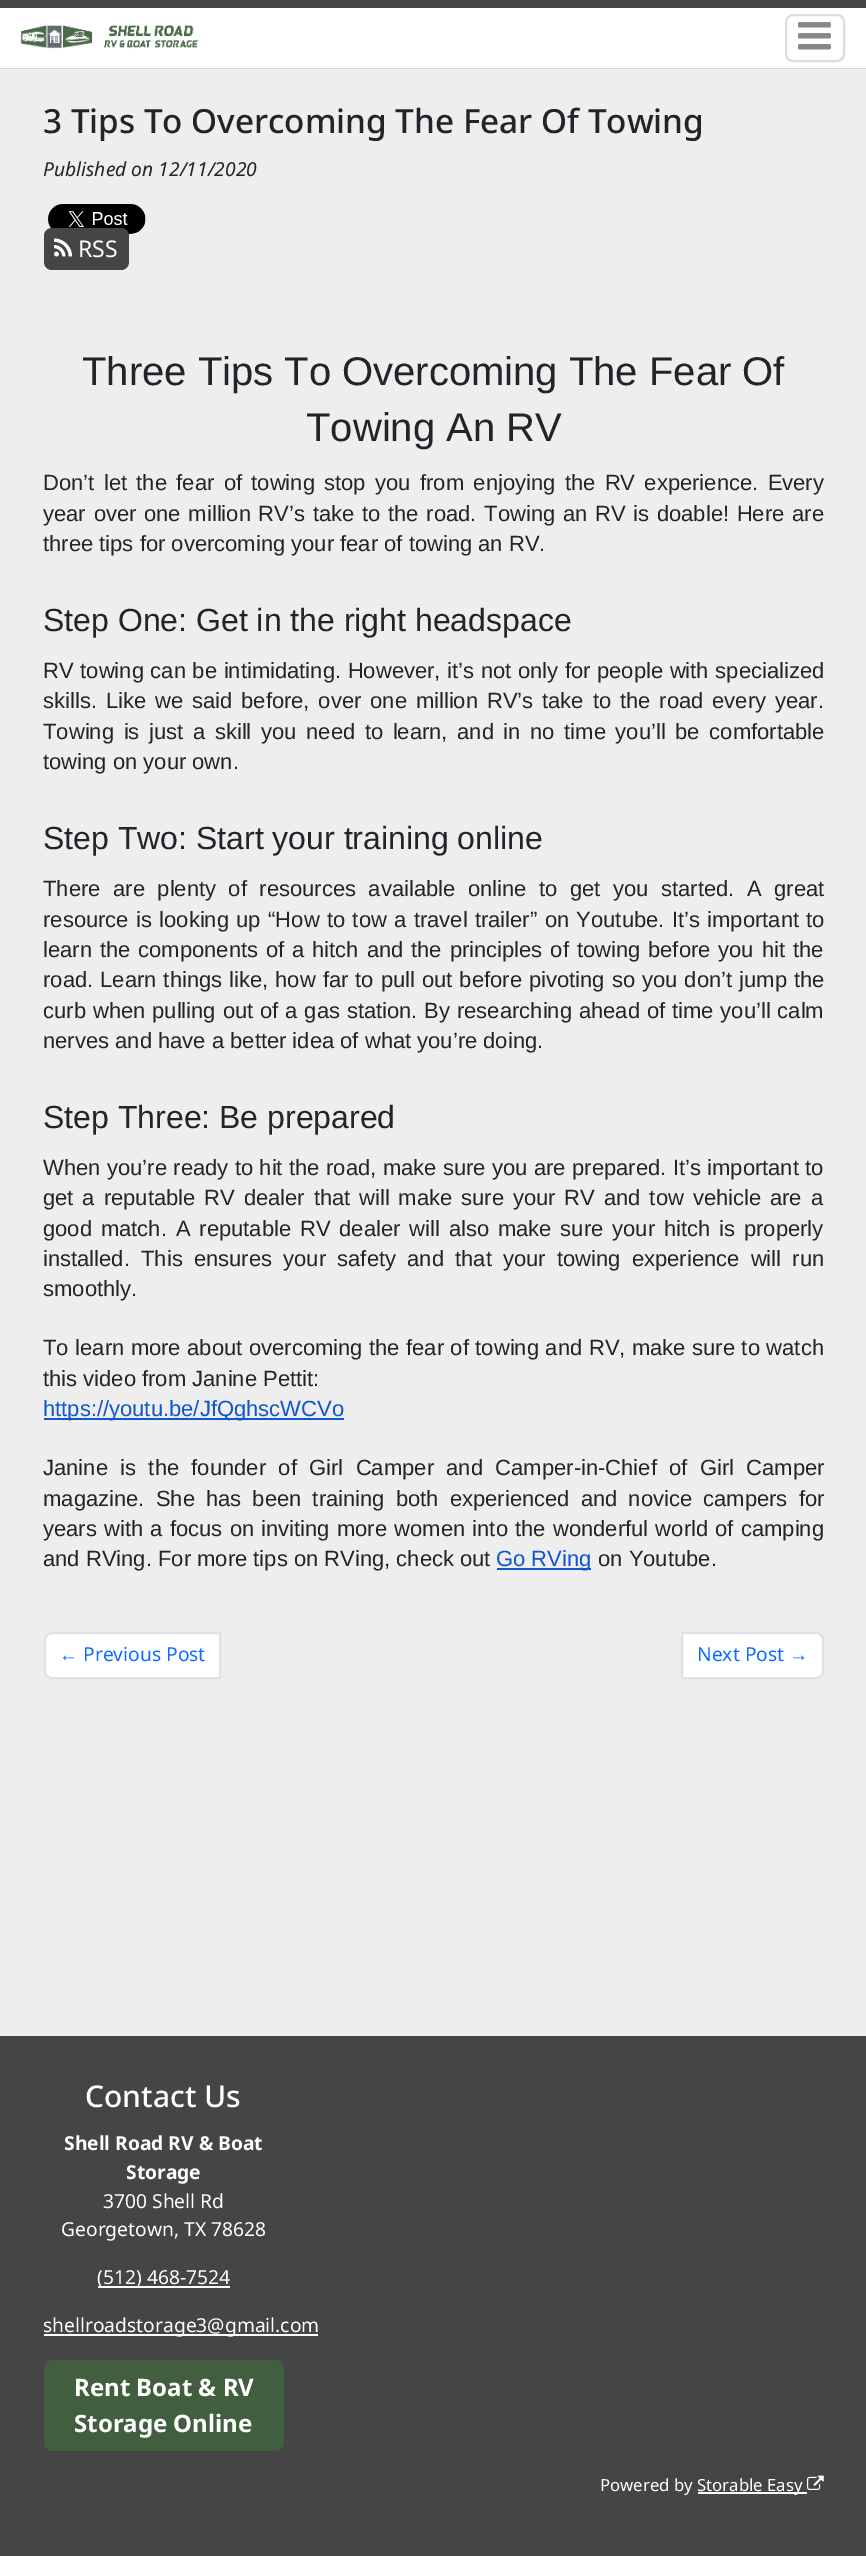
%!PS
<< /PageSize [866 2556] >> setpagedevice
/m/moveto load def
/l/rlineto load def
/c/rcurveto load def
/z/closepath load def
/f/fill load def
/s/stroke load def
/q/gsave load def
/Q_/grestore load def
/w/setlinewidth load def
/C { dup -16 bitshift 255 div exch dup -8 bitshift 255 and 255 div exch 255 and 255 div setrgbcolor } def
/F { [ exch dup neg 0 0 3 -1 roll 0 0 ] selectfont } def
/T { moveto show } def
/R { rectfill } def
/Q { 5 dict begin { /r /h /w /y /x } { exch def } forall
  x r add y moveto x w add y 2 copy h add r arct x w add y h add x 1 index r arct
  x y h add x y r arct x y 2 copy exch w add exch r arct closepath end } def
/I { 5 dict begin { /h /w /y /x /name } { exch def } forall
  gsave x y translate w h scale
  w h 8 [w 0 0 h 0 0] name (r) file false 3 colorimage grestore end } def
0 2556 translate 1 -1 scale
4 setmiterlimit
16#EEEEEE C
0 0 866 2556 R
16#D6D6D6 C
0 68 866 1 R
16#FFFFFF C
0 8 866 60 R
16#454545 C
0 0 866 8 R
(1.rgb) 20 25 178 24 I
16#DDDDDD C
2 w
786 15 58 46 7 Q s
(2.rgb) 798 22 33 28 I
/NotoSans-Medium 33.25 F
16#212529 C
(3 Tips To Overcoming The Fear Of Towing) 43 133 T
/NotoSans-Italic 19.25 F
(Published on 12/11/2020) 43 176 T
(3.rgb) 48 204 98 30 I
16#454545 C
44 228 85 42 8 Q f
(4.rgb) 54 238 19 19 I
/NotoSans-Regular 23 F
16#FFFFFF C
(RSS) 78 257 T
/LiberationSans-Regular 40 F
16#212529 C
(Three Tips To Overcoming The Fear Of) 82 385 T
(Towing An RV) 306 441 T
/LiberationSans-Regular 22 F
43 490 m 3.25 0 32 (Don’t let the fear of towing stop you from enjoying the RV experience. Every) widthshow
43 521 m 1.6 0 32 (year over one million RV’s take to the road. Towing an RV is doable! Here are) widthshow
(three tips for overcoming your fear of towing an RV.) 43 551 T
/LiberationSans-Regular 32 F
(Step One: Get in the right headspace) 43 631 T
/LiberationSans-Regular 22 F
43 678 m .5 0 32 (RV towing can be intimidating. However, it’s not only for people with specialized) widthshow
43 708 m 2.75 0 32 (skills. Like we said before, over one million RV’s take to the road every year.) widthshow
43 739 m 3.5 0 32 (Towing is just a skill you need to learn, and in no time you’ll be comfortable) widthshow
(towing on your own.) 43 769 T
/LiberationSans-Regular 32 F
(Step Two: Start your training online) 43 849 T
/LiberationSans-Regular 22 F
43 896 m 6.4 0 32 (There are plenty of resources available online to get you started. A great) widthshow
43 927 m 1.25 0 32 (resource is looking up “How to tow a travel trailer” on Youtube. It’s important to) widthshow
43 957 m 1.75 0 32 (learn the components of a hitch and the principles of towing before you hit the) widthshow
43 987 m .9 0 32 (road. Learn things like, how far to pull out before pivoting so you don’t jump the) widthshow
43 1018 m .75 0 32 (curb when pulling out of a gas station. By researching ahead of time you’ll calm) widthshow
(nerves and have a better idea of what you’re doing.) 43 1048 T
/LiberationSans-Regular 32 F
(Step Three: Be prepared) 43 1128 T
/LiberationSans-Regular 22 F
43 1175 m .3 0 32 (When you’re ready to hit the road, make sure you are prepared. It’s important to) widthshow
43 1205 m 2.75 0 32 (get a reputable RV dealer that will make sure your RV and tow vehicle are a) widthshow
43 1236 m 2.75 0 32 (good match. A reputable RV dealer will also make sure your hitch is properly) widthshow
43 1266 m 5.1 0 32 (installed. This ensures your safety and that your towing experience will run) widthshow
(smoothly.) 43 1296 T
43 1355 m .4 0 32 (To learn more about overcoming the fear of towing and RV, make sure to watch) widthshow
(this video from Janine Pettit:) 43 1386 T
16#1155CC C
44 1418 300 2 R
(https://youtu.be/JfQghscWCVo) 43 1416 T
16#212529 C
43 1475 m 6.25 0 32 (Janine is the founder of Girl Camper and Camper-in-Chief of Girl Camper) widthshow
43 1506 m 5 0 32 (magazine. She has been training both experienced and novice campers for) widthshow
43 1536 m 1.1 0 32 (years with a focus on inviting more women into the wonderful world of camping) widthshow
(and RVing. For more tips on RVing, check out) 43 1566 T
16#1155CC C
497 1568 94 2 R
(Go RVing) 496 1566 T
16#212529 C
(on Youtube.) 598 1566 T
16#FFFFFF C
52 1633 m 168 0 l 0 45 l -168 0 l -4 0 -7 -3 -7 -7 c 0 -31 l 0 -4 3 -7 7 -7 c z q f Q_
16#DEE2E6 C
s
/LiberationSans-Regular 19.25 F
16#0D6EFD C
(←) 59 1661 T
/NotoSans-Regular 19.25 F
(Previous Post) 83 1661 T
16#FFFFFF C
682 1633 m 134 0 l 4 0 7 3 7 7 c 0 31 l 0 4 -3 7 -7 7 c -134 0 l z q f Q_
16#DEE2E6 C
s
16#0D6EFD C
(Next Post) 697 1661 T
/LiberationSans-Regular 19.25 F
(→) 789 1661 T
16#454545 C
0 2036 866 520 R
/NotoSans-Medium 30 F
16#FFFFFF C
(Contact Us) 85 2107 T
/NotoSans-Bold 19.25 F
(Shell Road RV & Boat) 64 2150 T
(Storage) 126 2179 T
/NotoSans-Regular 19.25 F
(3700 Shell Rd) 103 2208 T
(Georgetown, TX 78628) 61 2236 T
98 2286 132 2 R
(\(512\) 468-7524) 97 2284 T
44 2334 274 2 R
(shellroadstorage3@gmail.com) 43 2332 T
16#415F3F C
44 2360 240 91 9 Q f
/NotoSans-Bold 24 F
16#FFFFFF C
(Rent Boat & RV) 74 2396 T
(Storage Online) 74 2432 T
/NotoSans-Regular 16.75 F
(Powered by) 600 2491 T
698 2492 109 2 R
(Storable Easy) 697 2491 T
(5.rgb) 807 2475 17 15 I
showpage
